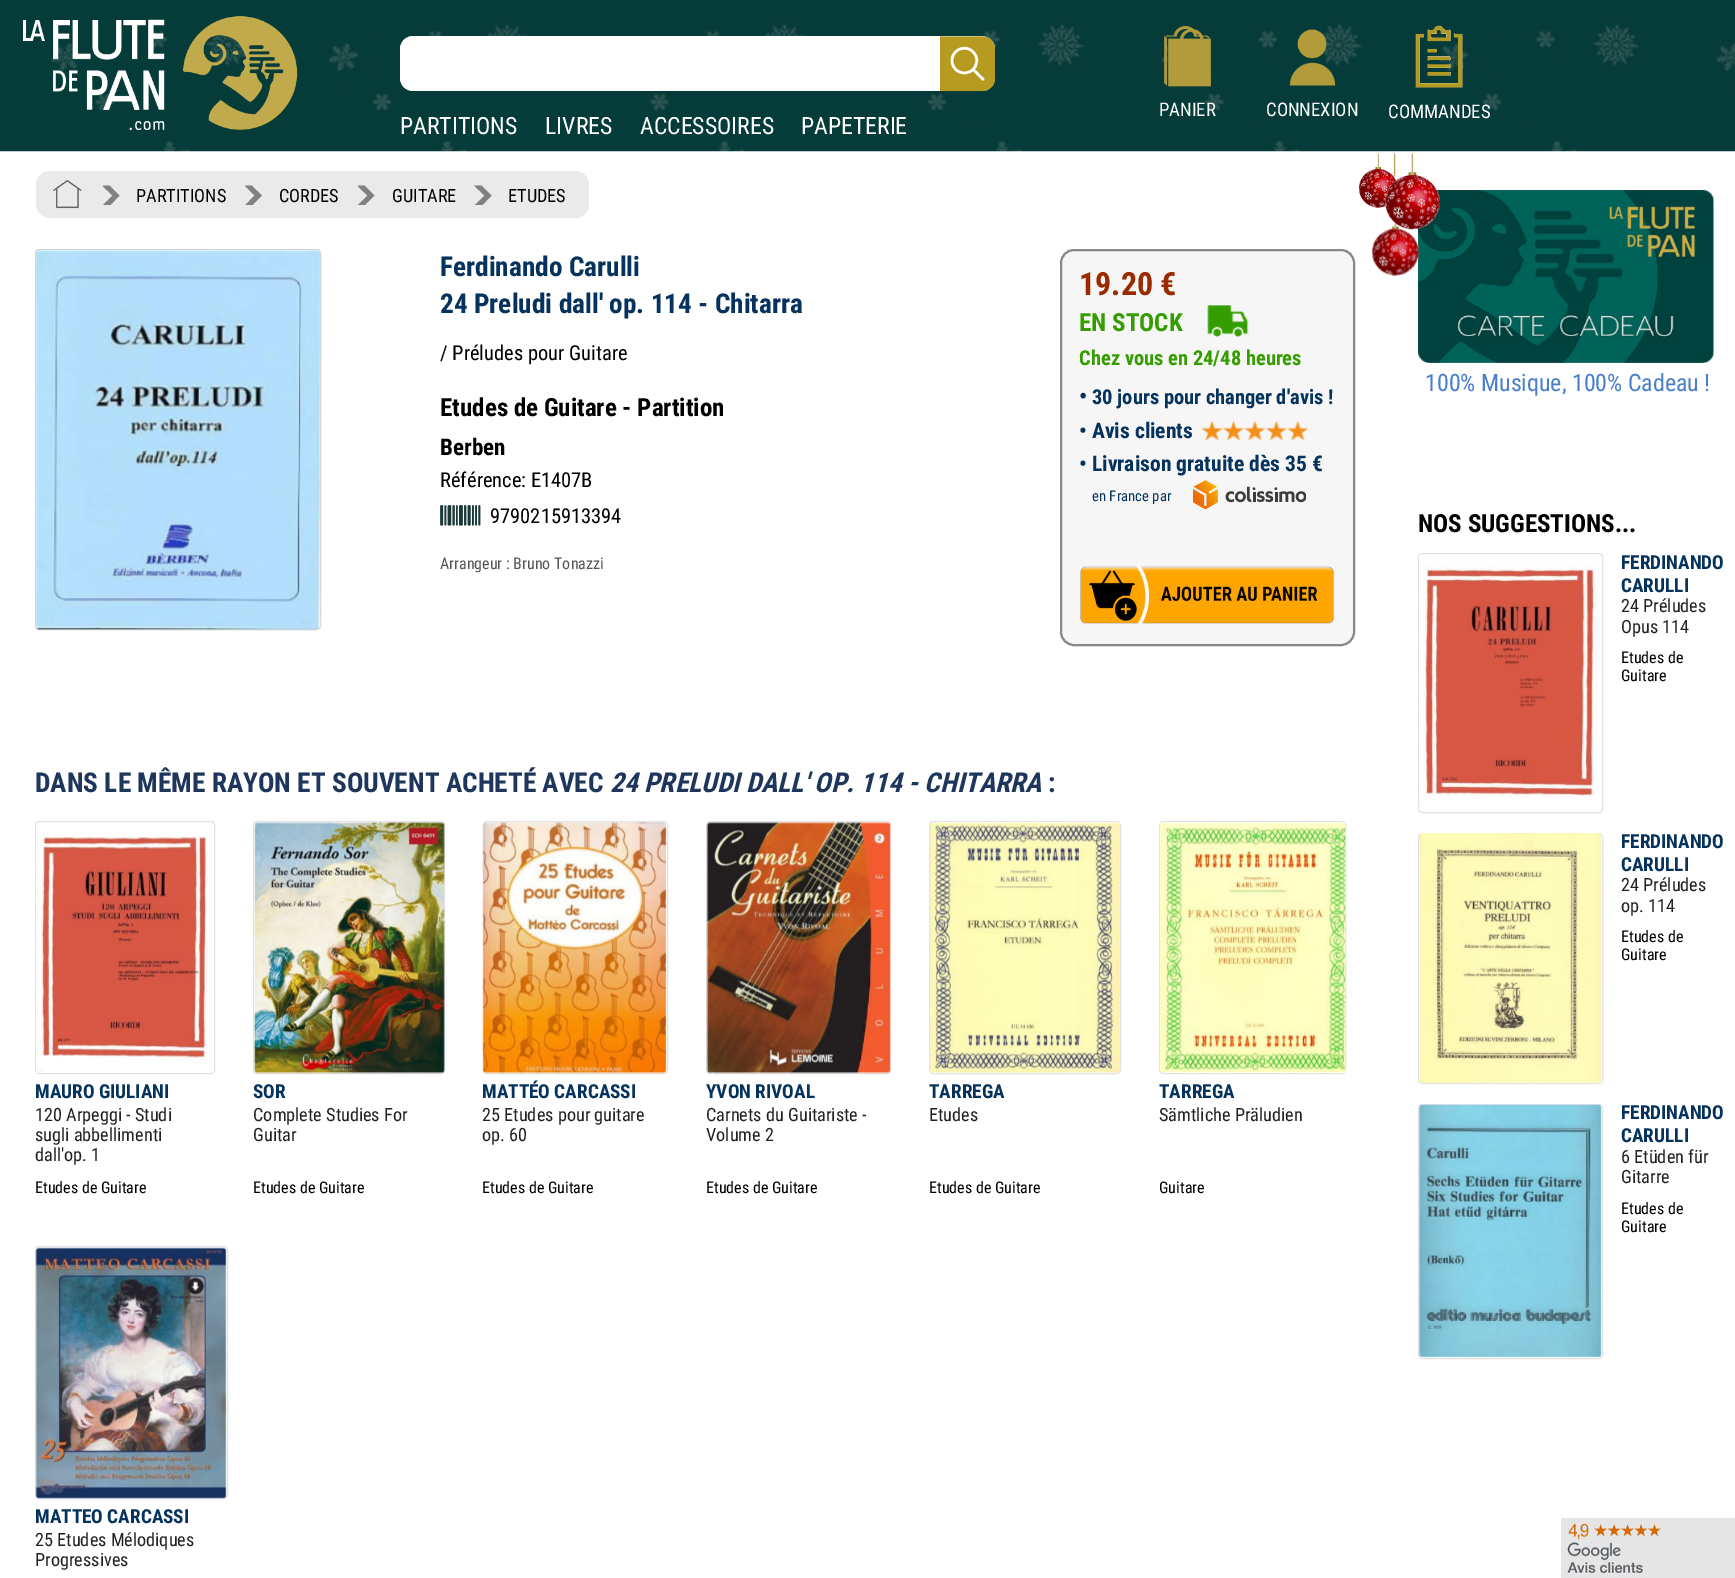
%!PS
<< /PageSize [1735 1578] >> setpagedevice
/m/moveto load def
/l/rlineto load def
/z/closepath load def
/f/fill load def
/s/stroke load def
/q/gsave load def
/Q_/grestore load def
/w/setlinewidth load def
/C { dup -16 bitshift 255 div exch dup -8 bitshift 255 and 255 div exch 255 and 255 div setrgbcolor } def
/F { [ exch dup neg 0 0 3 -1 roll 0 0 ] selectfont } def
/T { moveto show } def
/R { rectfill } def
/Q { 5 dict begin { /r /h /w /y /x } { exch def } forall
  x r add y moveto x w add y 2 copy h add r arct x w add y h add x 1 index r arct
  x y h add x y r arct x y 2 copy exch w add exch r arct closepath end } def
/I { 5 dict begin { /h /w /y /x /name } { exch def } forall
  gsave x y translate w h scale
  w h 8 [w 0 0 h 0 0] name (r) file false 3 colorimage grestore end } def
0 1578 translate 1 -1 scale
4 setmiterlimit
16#FFFFFF C
0 0 1735 1578 R
(1.rgb) 0 0 1735 152 I
(2.rgb) 23 16 275 114 I
(3.rgb) 1164 25 47 62 I
/RobotoCondensed-Regular 18.75 F
(PANIER) 1159 116 T
(4.rgb) 1289 29 47 57 I
(CONNEXION) 1266 116 T
(5.rgb) 1415 25 48 63 I
(COMMANDES) 1388 118 T
400 36 595 55 13 Q f
(6.rgb) 940 36 55 56 I
/RobotoCondensed-Regular 23.75 F
(PARTITIONS) 400 134 T
(LIVRES) 545 134 T
(ACCESSOIRES) 640 134 T
(PAPETERIE) 801 134 T
16#EAEAEA C
36 171 553 47 14 Q f
(7.rgb) 53 180 29 29 I
q
103 185 20 20 rectclip
16#818181 C
102 185.5 m 10.5 10 l -10.5 10.5 l 7.5 0 l 10 -10.5 l -10 -10 l z f
Q_
/RobotoCondensed-Regular 18.25 F
16#000000 C
(PARTITIONS) 136 202 T
q
245 185 20 20 rectclip
16#818181 C
244.5 185.5 m 10 10 l -10 10.5 l 7 0 l 10.5 -10.5 l -10.5 -10 l z f
Q_
(CORDES) 279 202 T
q
358 185 20 20 rectclip
16#818181 C
357 185.5 m 10.5 10 l -10.5 10.5 l 7 0 l 10.5 -10.5 l -10 -10 l z f
Q_
(GUITARE) 392 202 T
q
474 185 21 20 rectclip
16#818181 C
474 185.5 m 10.5 10 l -10.5 10.5 l 7.5 0 l 10 -10.5 l -10 -10 l z f
Q_
(ETUDES) 508 202 T
16#D1D1D1 C
35.5 249.5 285 380 3.5 Q s
(8.rgb) 35 250 286 380 I
/RobotoCondensed-Bold 27.3 F
16#06335D C
(Ferdinando Carulli) 440 276 T
(24 Preludi dall' op. 114 - Chitarra) 440 313 T
/RobotoCondensed-Regular 20.5 F
16#000000 C
(/ Préludes pour Guitare) 440 360 T
/RobotoCondensed-Bold 25 F
(Etudes de Guitare - Partition) 440 416 T
/RobotoCondensed-Bold 23 F
(Berben) 440 455 T
/RobotoCondensed-Regular 20.5 F
(Référence: E1407B) 440 487 T
(9.rgb) 440 505 41 21 I
(9790215913394) 490 523 T
/RobotoCondensed-Regular 16 F
16#555555 C
(Arrangeur : Bruno Tonazzi) 440 569 T
16#F6F6F6 C
1061 250 293 395 13 Q q f Q_
16#888888 C
2 w
s
/RobotoCondensed-Bold 32 F
16#9A2A00 C
(19.20 €) 1079 295 T
/RobotoCondensed-Bold 25 F
16#349E01 C
(EN STOCK) 1079 331 T
(10.rgb) 1207 305 42 33 I
/RobotoCondensed-Bold 20.5 F
(Chez vous en 24/48 heures) 1079 365 T
/RobotoCondensed-Bold 23 F
16#06335D C
(•) 1079 404 T
/RobotoCondensed-Bold 20.5 F
(30 jours pour changer d'avis !) 1092 404 T
/RobotoCondensed-Bold 21.6 F
(• Avis clients) 1079 438 T
(11.rgb) 1201 420 108 21 I
(• Livraison gratuite dès 35 €) 1079 471 T
/RobotoCondensed-Regular 14.75 F
(en France par) 1092 501 T
(12.rgb) 1193 480 113 29 I
(13.rgb) 1080 566 254 58 I
/RobotoCondensed-Bold 27.3 F
16#1F365C C
(DANS LE MÊME RAYON ET SOUVENT ACHETÉ AVEC) 35 792 T
/RobotoCondensed-BoldItalic 27.3 F
(24 PRELUDI DALL' OP. 114 - CHITARRA) 610 792 T
/RobotoCondensed-Bold 27.3 F
(:) 1048 792 T
16#E1E1E8 C
1 w
35.5 821.5 179 252 3.5 Q s
(14.rgb) 36 832 173 241 I
253.5 821.5 191 252 3.5 Q s
(15.rgb) 254 822 192 252 I
483.5 821.5 184 252 3.5 Q s
(16.rgb) 482 822 185 252 I
706.5 821.5 184 252 3.5 Q s
(17.rgb) 706 822 185 252 I
929.5 821.5 191 252 3.5 Q s
(18.rgb) 929 822 192 252 I
1159.5 821.5 186 252 3.5 Q s
(19.rgb) 1159 822 187 252 I
/RobotoCondensed-Bold 19.25 F
16#06335D C
(MAURO GIULIANI) 35 1098 T
(SOR) 253 1098 T
(MATTÉO CARCASSI) 482 1098 T
(YVON RIVOAL) 706 1098 T
(TARREGA) 929 1098 T
(TARREGA) 1159 1098 T
/RobotoCondensed-Regular 18.25 F
16#222222 C
(120 Arpeggi - Studi) 35 1121 T
(sugli abbellimenti) 35 1141 T
(dall'op. 1) 35 1161 T
(Complete Studies For) 253 1121 T
(Guitar) 253 1141 T
(25 Etudes pour guitare) 482 1121 T
(op. 60) 482 1141 T
(Carnets du Guitariste -) 706 1121 T
(Volume 2) 706 1141 T
(Etudes) 929 1121 T
(Sämtliche Präludien) 1159 1121 T
/RobotoCondensed-Regular 16 F
16#000000 C
(Etudes de Guitare) 35 1193 T
(Etudes de Guitare) 253 1193 T
(Etudes de Guitare) 482 1193 T
(Etudes de Guitare) 706 1193 T
(Etudes de Guitare) 929 1193 T
(Guitare) 1159 1193 T
16#E1E1E8 C
35.5 1246.5 192 252 3.5 Q s
(20.rgb) 35 1247 192 252 I
/RobotoCondensed-Bold 19.25 F
16#06335D C
(MATTEO CARCASSI) 35 1523 T
/RobotoCondensed-Regular 18.25 F
16#222222 C
(25 Etudes Mélodiques) 35 1546 T
(Progressives) 35 1566 T
(21.rgb) 1359 153 38 55 I
(25.rgb) 1418 190 296 173 I
(24.rgb) 1372 222 48 54 I
(22.rgb) 1385 153 55 77 I
(23.rgb) 1393 153 3 24 I
/RobotoCondensed-Regular 23.9 F
16#487ECC C
(100% Musique, 100% Cadeau !) 1425 391 T
/RobotoCondensed-Bold 25 F
16#000000 C
(NOS SUGGESTIONS...) 1418 532 T
16#E1E1E8 C
1418.5 553.5 184 259 3.5 Q s
(26.rgb) 1419 555 179 243 I
/RobotoCondensed-Bold 19.25 F
16#06335D C
(FERDINANDO) 1621 569 T
(CARULLI) 1621 592 T
/RobotoCondensed-Regular 18.25 F
16#222222 C
(24 Préludes) 1621 612 T
(Opus 114) 1621 633 T
/RobotoCondensed-Regular 16 F
16#000000 C
(Etudes de) 1621 663 T
(Guitare) 1621 681 T
16#E1E1E8 C
1418.5 833.5 184 250 3.5 Q s
(27.rgb) 1419 832 183 252 I
/RobotoCondensed-Bold 19.25 F
16#06335D C
(FERDINANDO) 1621 848 T
(CARULLI) 1621 871 T
/RobotoCondensed-Regular 18.25 F
16#222222 C
(24 Préludes) 1621 891 T
(op. 114) 1621 912 T
/RobotoCondensed-Regular 16 F
16#000000 C
(Etudes de) 1621 942 T
(Guitare) 1621 960 T
16#E1E1E8 C
1418.5 1104.5 184 254 3.5 Q s
(28.rgb) 1418 1104 184 254 I
/RobotoCondensed-Bold 19.25 F
16#06335D C
(FERDINANDO) 1621 1119 T
(CARULLI) 1621 1142 T
/RobotoCondensed-Regular 18.25 F
16#222222 C
(6 Etüden für) 1621 1163 T
(Gitarre) 1621 1183 T
/RobotoCondensed-Regular 16 F
16#000000 C
(Etudes de) 1621 1214 T
(Guitare) 1621 1232 T
(29.rgb) 1561 1518 174 60 I
showpage
